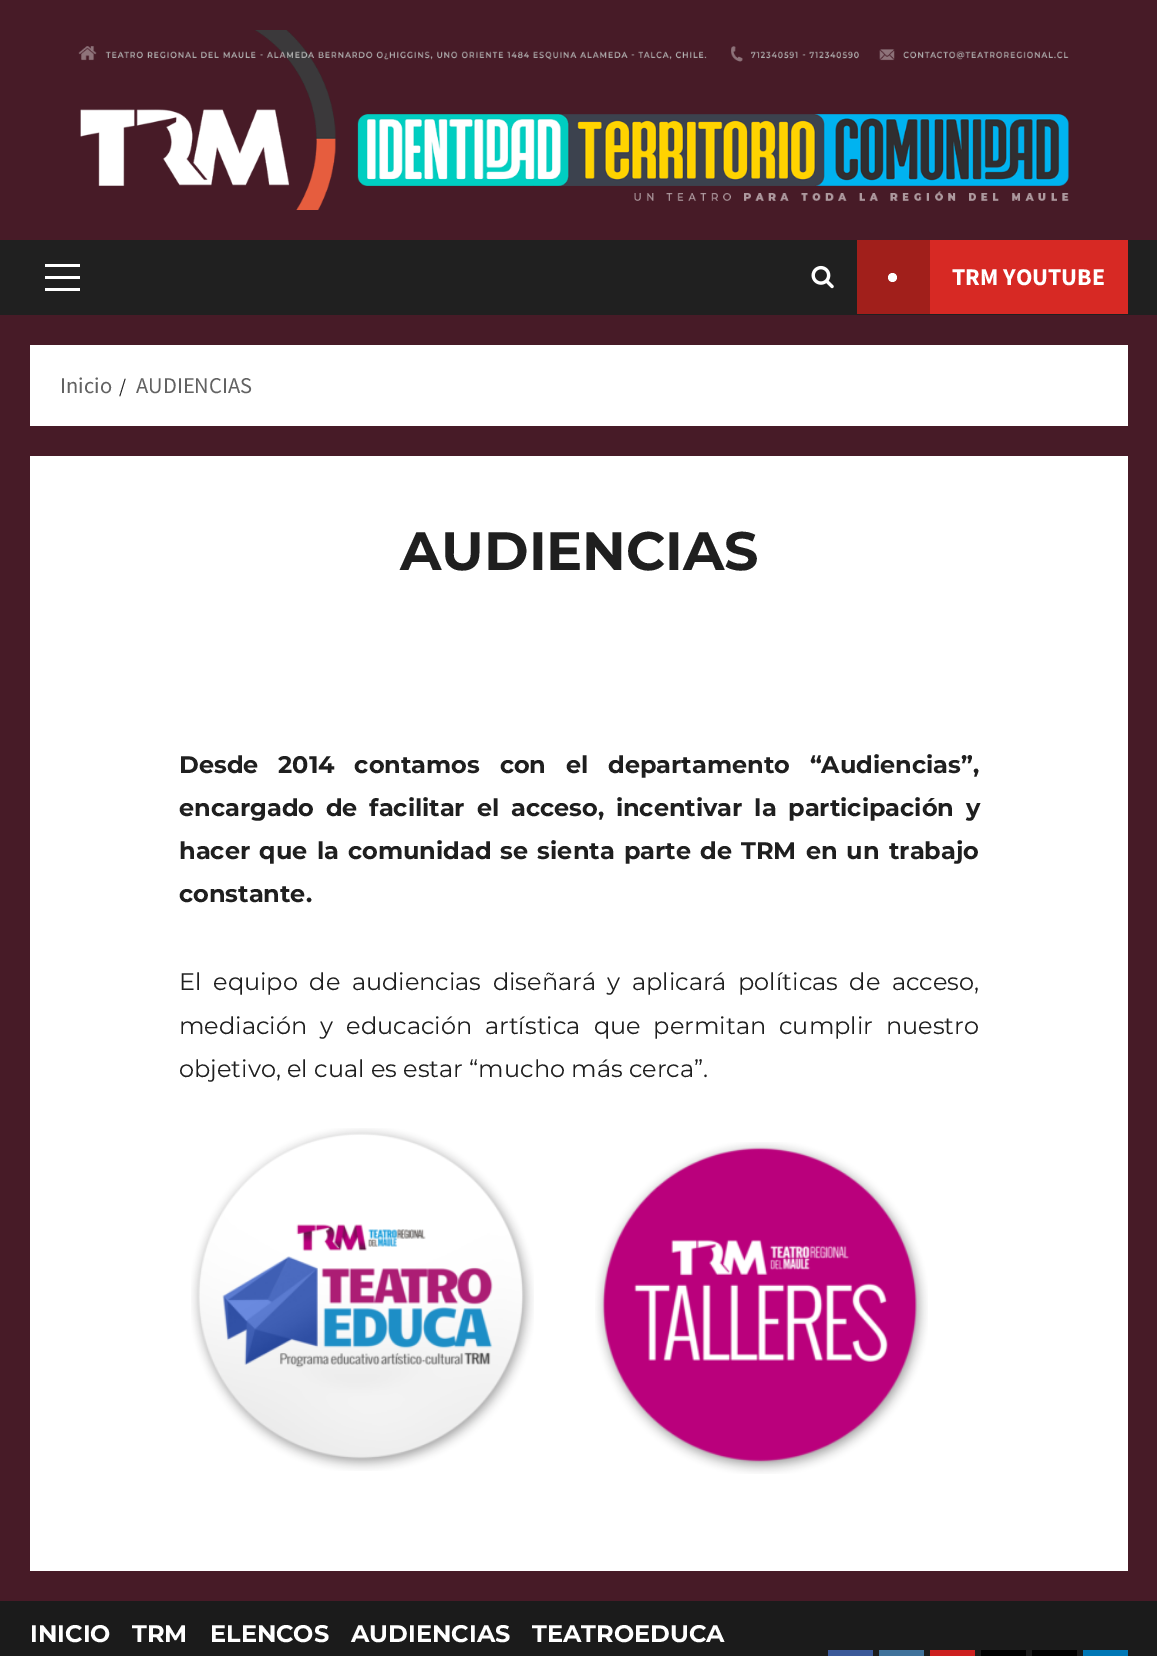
%!PS
<< /PageSize [1157 1656] >> setpagedevice
/m/moveto load def
/f/fill load def
/C { dup -16 bitshift 255 div exch dup -8 bitshift 255 and 255 div exch 255 and 255 div setrgbcolor } def
/F { [ exch dup neg 0 0 3 -1 roll 0 0 ] selectfont } def
/T { moveto show } def
/R { rectfill } def
/O { newpath 0 360 arc closepath } def
/I { 5 dict begin { /h /w /y /x /name } { exch def } forall
  gsave x y translate w h scale
  w h 8 [w 0 0 h 0 0] name (r) file false 3 colorimage grestore end } def
0 1656 translate 1 -1 scale
4 setmiterlimit
16#471B27 C
0 0 1157 1656 R
(1.rgb) 78 30 991 180 I
16#202020 C
0 240 1157 75 R
16#FFFFFF C
45 276 35 3 R
45 264 35 3 R
45 288 35 3 R
(2.rgb) 811 265 23 24 I
16#D72924 C
930 240 198 74 R
16#A11F1B C
857 240 73 74 R
16#FFFFFF C
892.5 277.5 4.5 O f
/SourceSansPro-Bold 24 F
(TRM YOUTUBE) 952 285 T
30 345 1098 81 R
/SourceSansPro-Regular 22.5 F
16#626262 C
(Inicio) 60 393 T
/SourceSansPro-Regular 20 F
16#1F1F1F C
(/) 119 393 T
/SourceSansPro-Regular 22.5 F
16#626262 C
(AUDIENCIAS) 136 393 T
16#FFFFFF C
30 456 1098 1115 R
/Montserrat-Bold 54 F
16#1F1F1F C
(AUDIENCIAS) 400 570 T
/Montserrat-Bold 24 F
179 773 m 13 0 32 (Desde 2014 contamos con el departamento “Audiencias”,) widthshow
179 816 m 5 0 32 (encargado de facilitar el acceso, incentivar la participación y) widthshow
179 859 m 2.4 0 32 (hacer que la comunidad se sienta parte de TRM en un trabajo) widthshow
(constante.) 179 902 T
/Montserrat-Regular 24 F
179 990 m 5.25 0 32 (El equipo de audiencias diseñará y aplicará políticas de acceso,) widthshow
179 1034 m 6.75 0 32 (mediación y educación artística que permitan cumplir nuestro) widthshow
(objetivo, el cual es estar “mucho más cerca”.) 179 1077 T
(3.rgb) 191 1128 343 343 I
(4.rgb) 595 1142 333 332 I
16#1B1B1B C
0 1601 1157 55 R
/Montserrat-Bold 24 F
16#FFFFFF C
(INICIO) 30 1642 T
(TRM) 132 1642 T
(ELENCOS) 210 1642 T
(AUDIENCIAS) 351 1642 T
(TEATROEDUCA) 532 1642 T
16#3B5999 C
828 1650 45 6 R
16#3F729B C
879 1650 45 6 R
16#CD201F C
930 1650 45 6 R
16#000000 C
981 1650 45 6 R
1032 1650 45 6 R
16#0077B5 C
1083 1650 45 6 R
showpage
